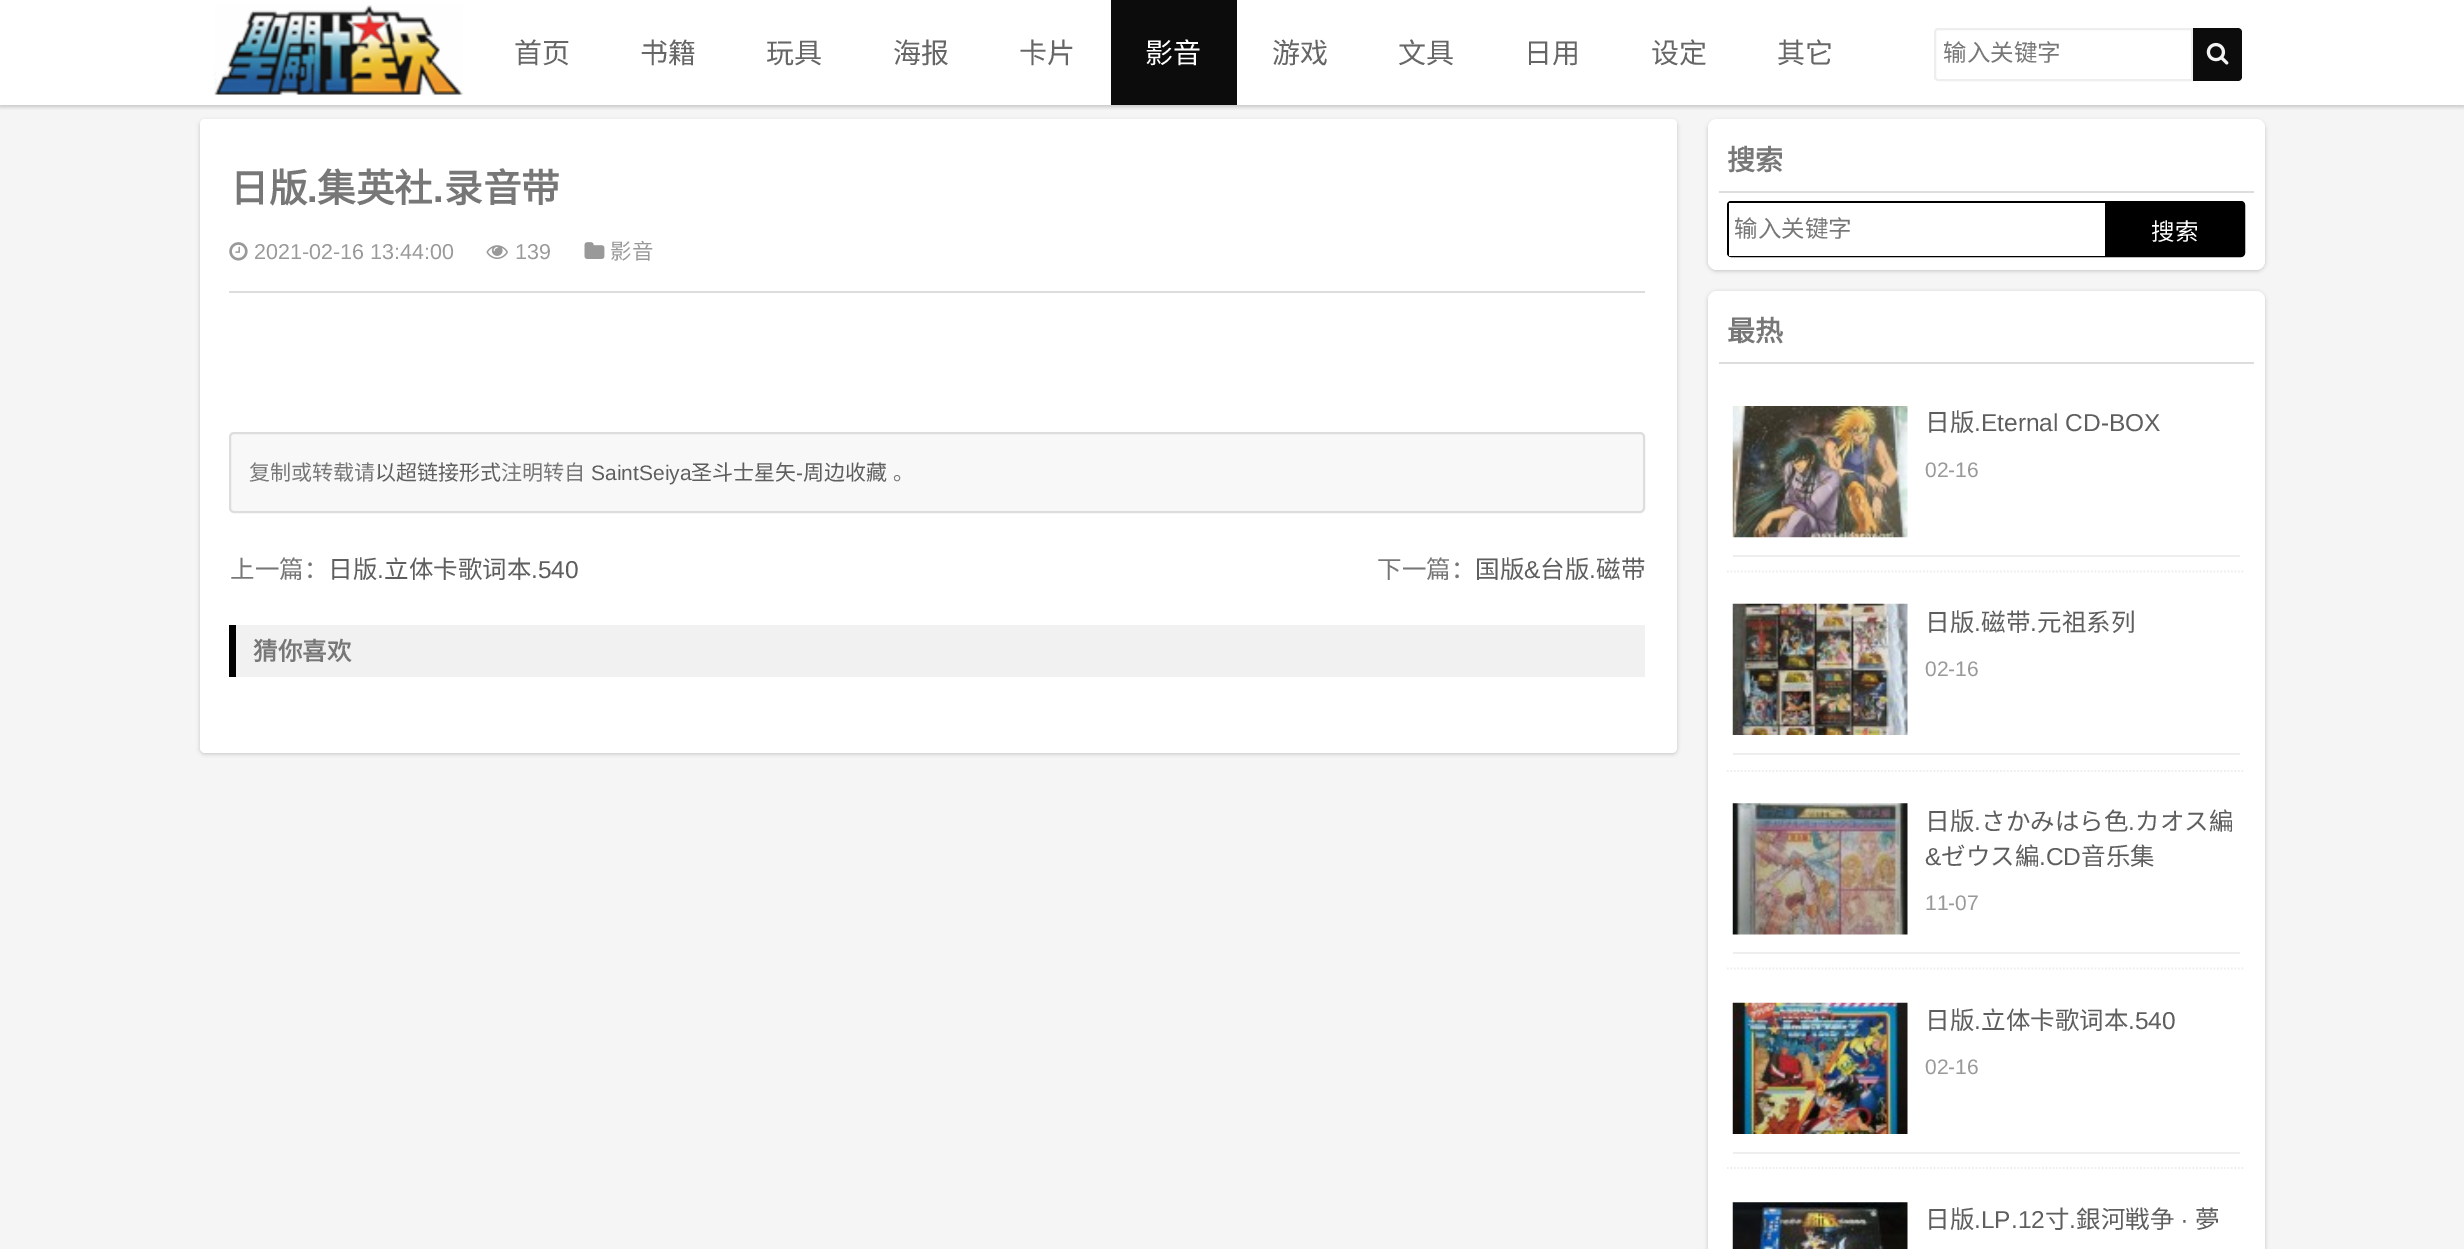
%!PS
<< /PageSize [2464 1249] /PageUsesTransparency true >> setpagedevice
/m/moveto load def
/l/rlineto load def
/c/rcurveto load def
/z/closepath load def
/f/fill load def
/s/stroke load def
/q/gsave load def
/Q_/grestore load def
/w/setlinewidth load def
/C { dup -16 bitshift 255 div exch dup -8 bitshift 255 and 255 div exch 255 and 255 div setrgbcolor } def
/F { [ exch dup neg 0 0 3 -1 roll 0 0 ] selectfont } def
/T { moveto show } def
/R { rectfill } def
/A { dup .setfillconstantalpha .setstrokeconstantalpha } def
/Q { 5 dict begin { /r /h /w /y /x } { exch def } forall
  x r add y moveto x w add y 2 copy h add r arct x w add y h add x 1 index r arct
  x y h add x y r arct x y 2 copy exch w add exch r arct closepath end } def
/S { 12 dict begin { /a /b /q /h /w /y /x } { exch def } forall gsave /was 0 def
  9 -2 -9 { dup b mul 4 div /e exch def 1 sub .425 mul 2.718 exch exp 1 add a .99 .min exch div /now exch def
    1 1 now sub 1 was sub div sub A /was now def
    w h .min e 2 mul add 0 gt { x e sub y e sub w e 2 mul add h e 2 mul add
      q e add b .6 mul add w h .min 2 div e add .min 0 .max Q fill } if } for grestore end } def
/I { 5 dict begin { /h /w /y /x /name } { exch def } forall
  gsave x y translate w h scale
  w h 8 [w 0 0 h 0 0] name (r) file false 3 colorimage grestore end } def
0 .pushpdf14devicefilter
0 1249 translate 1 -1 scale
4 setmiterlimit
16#F5F5F5 C
0 0 2464 1249 R
16#FFFFFF C
0 0 2464 105 R
q
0 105 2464 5 rectclip
16#0C0C0C C
0 2 2464 105 0 2 .2 S
Q_
(1.rgb) 214 5 249 90 I
/NotoSansCJKSC-Regular 28 F
16#666666 C
(首页) 514 63 T
(书籍) 640 63 T
(玩具) 766 63 T
(海报) 893 63 T
(卡片) 1019 63 T
16#0C0C0C C
1111 0 126 105 R
16#FFFFFF C
(影音) 1145 63 T
16#666666 C
(游戏) 1272 63 T
(文具) 1398 63 T
(日用) 1524 63 T
(设定) 1651 63 T
(其它) 1777 63 T
16#EEEEEE C
2 w
1938 29 m 254 0 l 0 51 l -254 0 l -1.5 0 -3 -1.5 -3 -3 c 0 -45 l 0 -1.5 1.5 -3 3 -3 c z s
/NotoSansCJKSC-Regular 23.5 F
16#777777 C
(输入关键字) 1943 61 T
16#0C0C0C C
2193 28 m 45 0 l 2 0 4 2 4 4 c 0 45 l 0 2 -2 4 -4 4 c -45 0 l z f
(2.rgb) 2206 42 23 23 I
16#000000 C
200 121 1477 633 5 2 .2 S
16#FFFFFF C
200 119 1477 634 5 Q f
/NotoSansCJKSC-Bold 38.5 F
16#777777 C
(日版) 230 202 T
/LiberationSans-Bold 38.5 F
(.) 307 202 T
/NotoSansCJKSC-Bold 38.5 F
(集英社) 317 202 T
/LiberationSans-Bold 38.5 F
(.) 433 202 T
/NotoSansCJKSC-Bold 38.5 F
(录音带) 444 202 T
(3.rgb) 229 242 19 19 I
/LiberationSans-Regular 21.5 F
16#999999 C
(2021-02-16 13:44:00) 254 259 T
(4.rgb) 486 245 22 14 I
(139) 515 259 T
(5.rgb) 584 242 21 17 I
/NotoSansCJKSC-Regular 21.5 F
(影音) 610 259 T
16#DDDDDD C
229 291 1416 2 R
16#F8F8F8 C
230 433 1414 79 4 Q q f Q_
16#DDDDDD C
s
/NotoSansCJKSC-Regular 21 F
16#777777 C
(复制或转载请) 249 480 T
16#5E5E5E C
(以超链接形式) 375 480 T
16#777777 C
(注明转自) 501 480 T
/LiberationSans-Regular 21 F
16#5E5E5E C
(SaintSeiya) 591 480 T
/NotoSansCJKSC-Regular 21 F
(圣斗士星矢) 691 480 T
/LiberationSans-Regular 21 F
(-) 796 480 T
/NotoSansCJKSC-Regular 21 F
(周边收藏) 803 480 T
16#777777 C
(。) 893 480 T
/NotoSansCJKSC-Regular 24.5 F
(上一篇：) 230 578 T
16#5E5E5E C
(日版) 328 578 T
/LiberationSans-Regular 24.5 F
(.) 377 578 T
/NotoSansCJKSC-Regular 24.5 F
(立体卡歌词本) 384 578 T
/LiberationSans-Regular 24.5 F
(.540) 531 578 T
/NotoSansCJKSC-Regular 24.5 F
16#777777 C
(下一篇：) 1377 578 T
16#5E5E5E C
(国版) 1475 578 T
/LiberationSans-Regular 24.5 F
(&) 1524 578 T
/NotoSansCJKSC-Regular 24.5 F
(台版) 1540 578 T
/LiberationSans-Regular 24.5 F
(.) 1589 578 T
/NotoSansCJKSC-Regular 24.5 F
(磁带) 1596 578 T
16#F1F1F1 C
236 625 1409 52 R
16#000000 C
229 625 7 52 R
/NotoSansCJKSC-Bold 24.5 F
16#777777 C
(猜你喜欢) 253 660 T
16#000000 C
1708 121 557 150 9 2 .2 S
16#FFFFFF C
1708 119 557 151 9 Q f
16#DDDDDD C
1719 191 535 2 R
/NotoSansCJKSC-Bold 28 F
16#777777 C
(搜索) 1727 170 T
16#000000 C
1728 202 516 54 3 Q s
16#FFFFFF C
1729 203 376 53 R
/NotoSansCJKSC-Regular 23.5 F
16#777777 C
(输入关键字) 1734 237 T
16#000000 C
2105 203 139 53 R
16#FFFFFF C
(搜索) 2151 240 T
16#000000 C
1708 292 557 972 9 2 .2 S
16#FFFFFF C
1708 291 557 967 9 Q f
16#DDDDDD C
1719 362 535 2 R
/NotoSansCJKSC-Bold 28 F
16#777777 C
(最热) 1727 341 T
16#EEEEEE C
1.8 w
[1.75 1.75] 0 setdash
1727 571.5 m 518 0 l s
1733 555 507 2 R
(6.rgb) 1732 406 176 132 I
/NotoSansCJKSC-Regular 24.5 F
16#5E5E5E C
(日版) 1925 431 T
/LiberationSans-Regular 24.5 F
(.Eternal CD-BOX) 1974 431 T
/LiberationSans-Regular 21 F
16#999999 C
(02-16) 1925 477 T
16#EEEEEE C
1727 771 m 518 0 l s
1733 753 507 2 R
(7.rgb) 1732 603 176 132 I
/NotoSansCJKSC-Regular 24.5 F
16#5E5E5E C
(日版) 1925 631 T
/LiberationSans-Regular 24.5 F
(.) 1974 631 T
/NotoSansCJKSC-Regular 24.5 F
(磁带) 1981 631 T
/LiberationSans-Regular 24.5 F
(.) 2030 631 T
/NotoSansCJKSC-Regular 24.5 F
(元祖系列) 2037 631 T
/LiberationSans-Regular 21 F
16#999999 C
(02-16) 1925 676 T
16#EEEEEE C
1727 968.5 m 518 0 l s
1733 952 507 2 R
(8.rgb) 1732 803 176 132 I
/NotoSansCJKSC-Regular 24.5 F
16#5E5E5E C
(日版) 1925 830 T
/LiberationSans-Regular 24.5 F
(.) 1974 830 T
/NotoSansCJKSC-Regular 24.5 F
(さかみはら色) 1981 830 T
/LiberationSans-Regular 24.5 F
(.) 2128 830 T
/NotoSansCJKSC-Regular 24.5 F
(カオス編) 2135 830 T
/LiberationSans-Regular 24.5 F
(&) 1925 865 T
/NotoSansCJKSC-Regular 24.5 F
(ゼウス編) 1941 865 T
/LiberationSans-Regular 24.5 F
(.CD) 2039 865 T
/NotoSansCJKSC-Regular 24.5 F
(音乐集) 2081 865 T
/LiberationSans-Regular 21 F
16#999999 C
(11-07) 1925 910 T
16#EEEEEE C
1727 1168 m 518 0 l s
1733 1152 507 2 R
(9.rgb) 1732 1002 176 132 I
/NotoSansCJKSC-Regular 24.5 F
16#5E5E5E C
(日版) 1925 1029 T
/LiberationSans-Regular 24.5 F
(.) 1974 1029 T
/NotoSansCJKSC-Regular 24.5 F
(立体卡歌词本) 1981 1029 T
/LiberationSans-Regular 24.5 F
(.540) 2128 1029 T
/LiberationSans-Regular 21 F
16#999999 C
(02-16) 1925 1074 T
(10.rgb) 1732 1202 176 47 I
/NotoSansCJKSC-Regular 24.5 F
16#5E5E5E C
(日版) 1925 1228 T
/LiberationSans-Regular 24.5 F
(.LP.12) 1974 1228 T
/NotoSansCJKSC-Regular 24.5 F
(寸) 2045 1228 T
(銀河戦争) 2076 1228 T
/LiberationSans-Regular 24.5 F
(∙) 2181 1228 T
/NotoSansCJKSC-Regular 24.5 F
(夢) 2195 1228 T
/LiberationSans-Regular 24.5 F
(.) 2069 1228 T
.poppdf14devicefilter showpage
